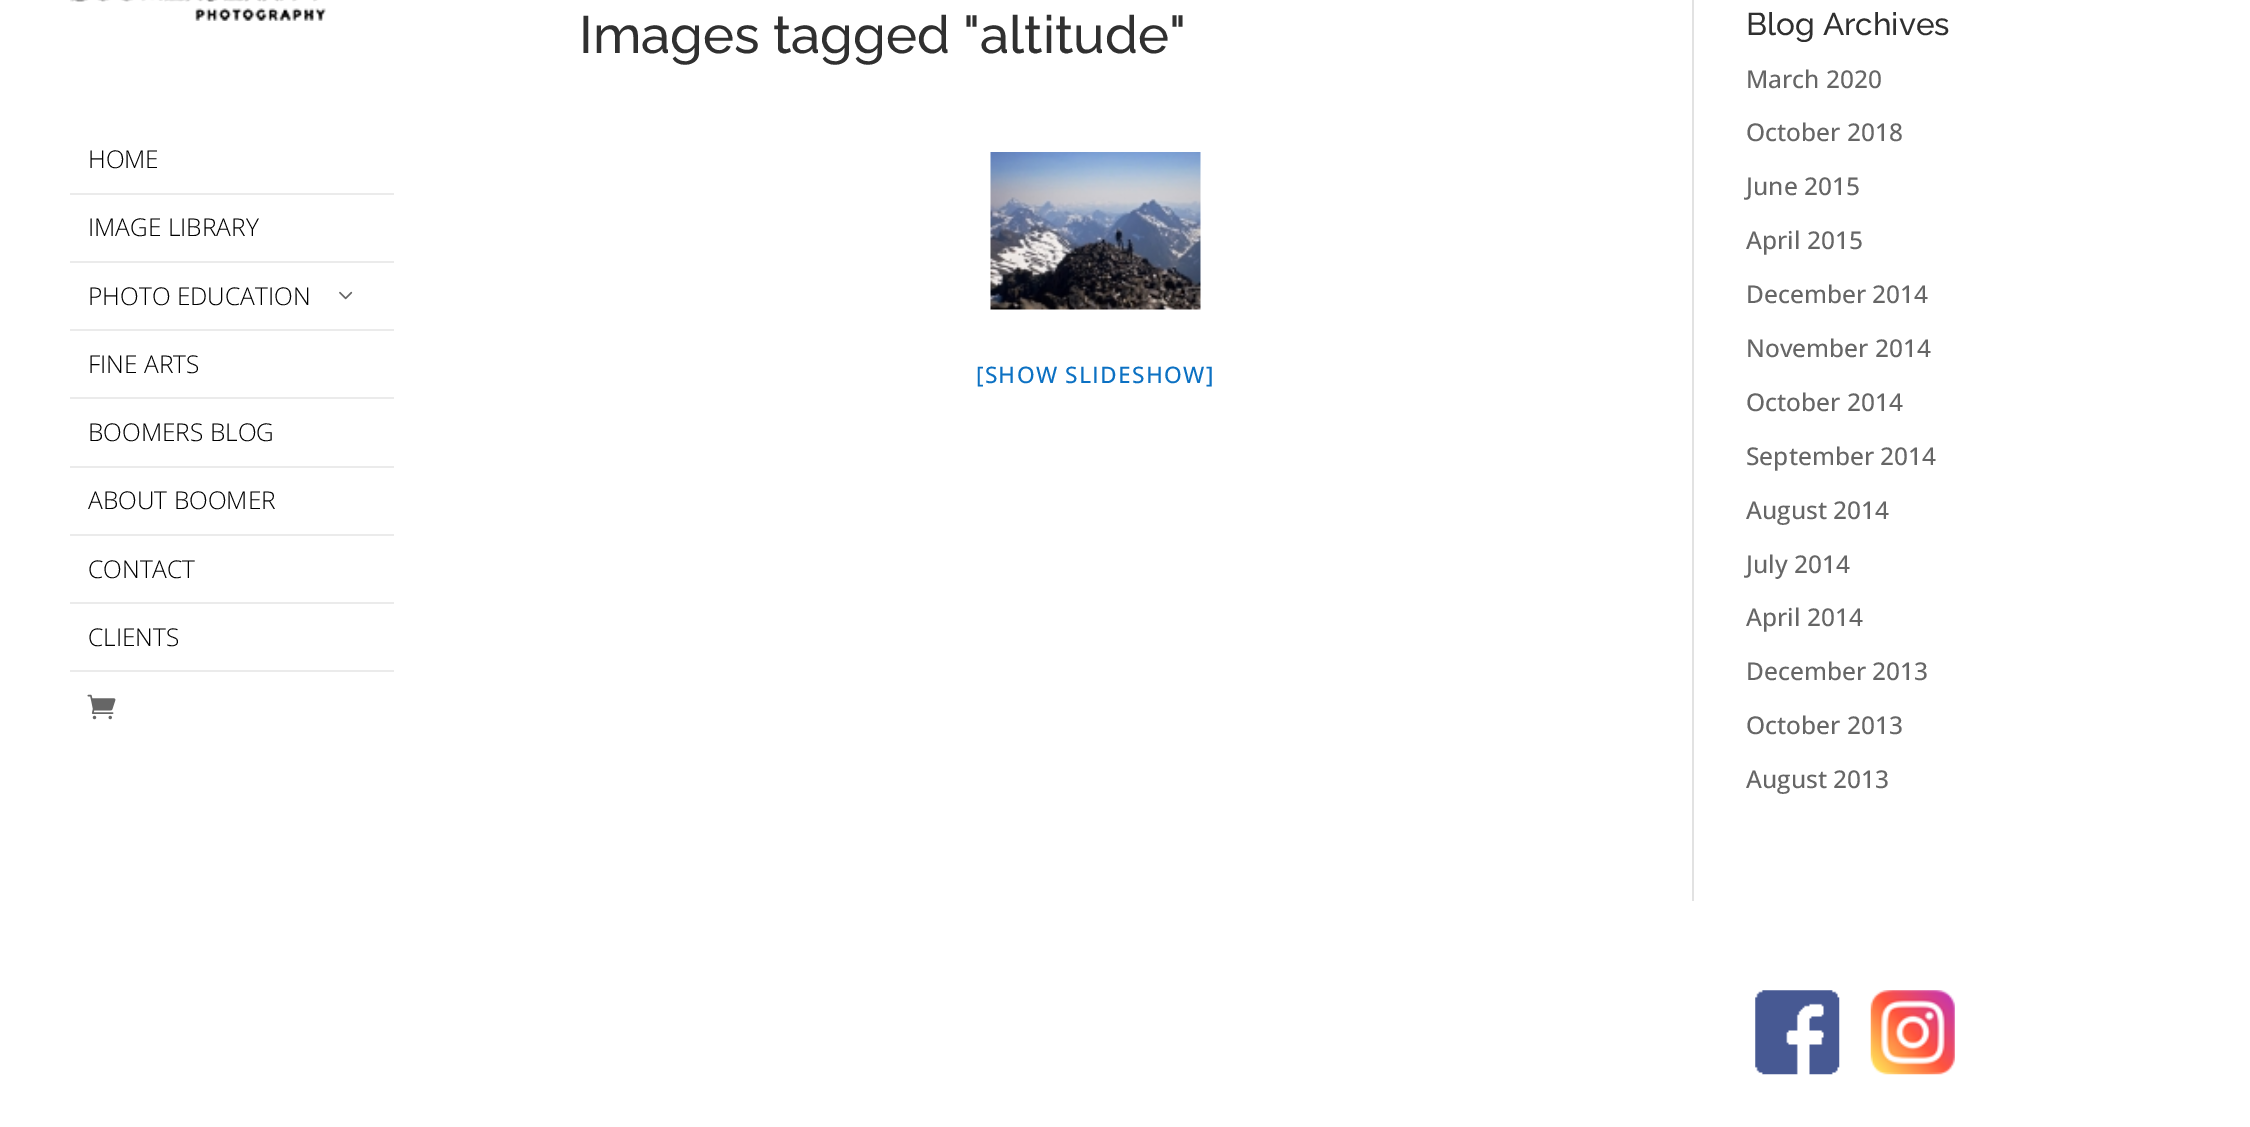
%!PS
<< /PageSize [2250 1127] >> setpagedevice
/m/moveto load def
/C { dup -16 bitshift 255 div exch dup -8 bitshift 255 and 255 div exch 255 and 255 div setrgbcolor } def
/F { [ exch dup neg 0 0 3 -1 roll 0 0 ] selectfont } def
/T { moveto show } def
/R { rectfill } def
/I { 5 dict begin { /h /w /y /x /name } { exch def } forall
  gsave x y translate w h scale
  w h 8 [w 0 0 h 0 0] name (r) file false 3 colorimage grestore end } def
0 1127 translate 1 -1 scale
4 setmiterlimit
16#FFFFFF C
0 0 2250 1127 R
(1.rgb) 70 0 256 21 I
16#EBEBEB C
70 193 324 2 R
/OpenSans-Light 24.5 F
16#000000 C
(HOME) 88 168 T
16#EBEBEB C
70 261 324 2 R
16#000000 C
(IMAGE LIBRARY) 88 236 T
16#EBEBEB C
70 329 324 2 R
16#000000 C
(PHOTO EDUCATION) 88 305 T
(2.rgb) 339 291 14 9 I
16#EBEBEB C
70 397 324 2 R
16#000000 C
(FINE ARTS) 88 373 T
16#EBEBEB C
70 466 324 2 R
16#000000 C
(BOOMERS BLOG) 88 441 T
16#EBEBEB C
70 534 324 2 R
16#000000 C
(ABOUT BOOMER) 88 509 T
16#EBEBEB C
70 602 324 2 R
16#000000 C
(CONTACT) 88 578 T
16#EBEBEB C
70 670 324 2 R
16#000000 C
(CLIENTS) 88 646 T
(3.rgb) 87 694 29 26 I
16#E2E2E2 C
1692 0 2 901 R
/Raleway-Thin 52.5 F
16#303030 C
(Images tagged "altitude") 579 53 T
(4.rgb) 990 152 211 158 I
/OpenSans-Medium 22.75 F
16#0C71C3 C
976 383 m 1.25 0 ([SHOW SLIDESHOW]) ashow
/Raleway-Thin 31.5 F
16#303030 C
(Blog Archives) 1746 35 T
/OpenSans-Medium 24.5 F
16#666666 C
(March 2020) 1746 88 T
(October 2018) 1746 141 T
(June 2015) 1746 195 T
(April 2015) 1746 249 T
(December 2014) 1746 303 T
(November 2014) 1746 357 T
(October 2014) 1746 411 T
(September 2014) 1746 465 T
(August 2014) 1746 519 T
(July 2014) 1746 573 T
(April 2014) 1746 626 T
(December 2013) 1746 680 T
(October 2013) 1746 734 T
(August 2013) 1746 788 T
(5.rgb) 1755 990 85 85 I
(6.rgb) 1870 990 85 85 I
showpage
